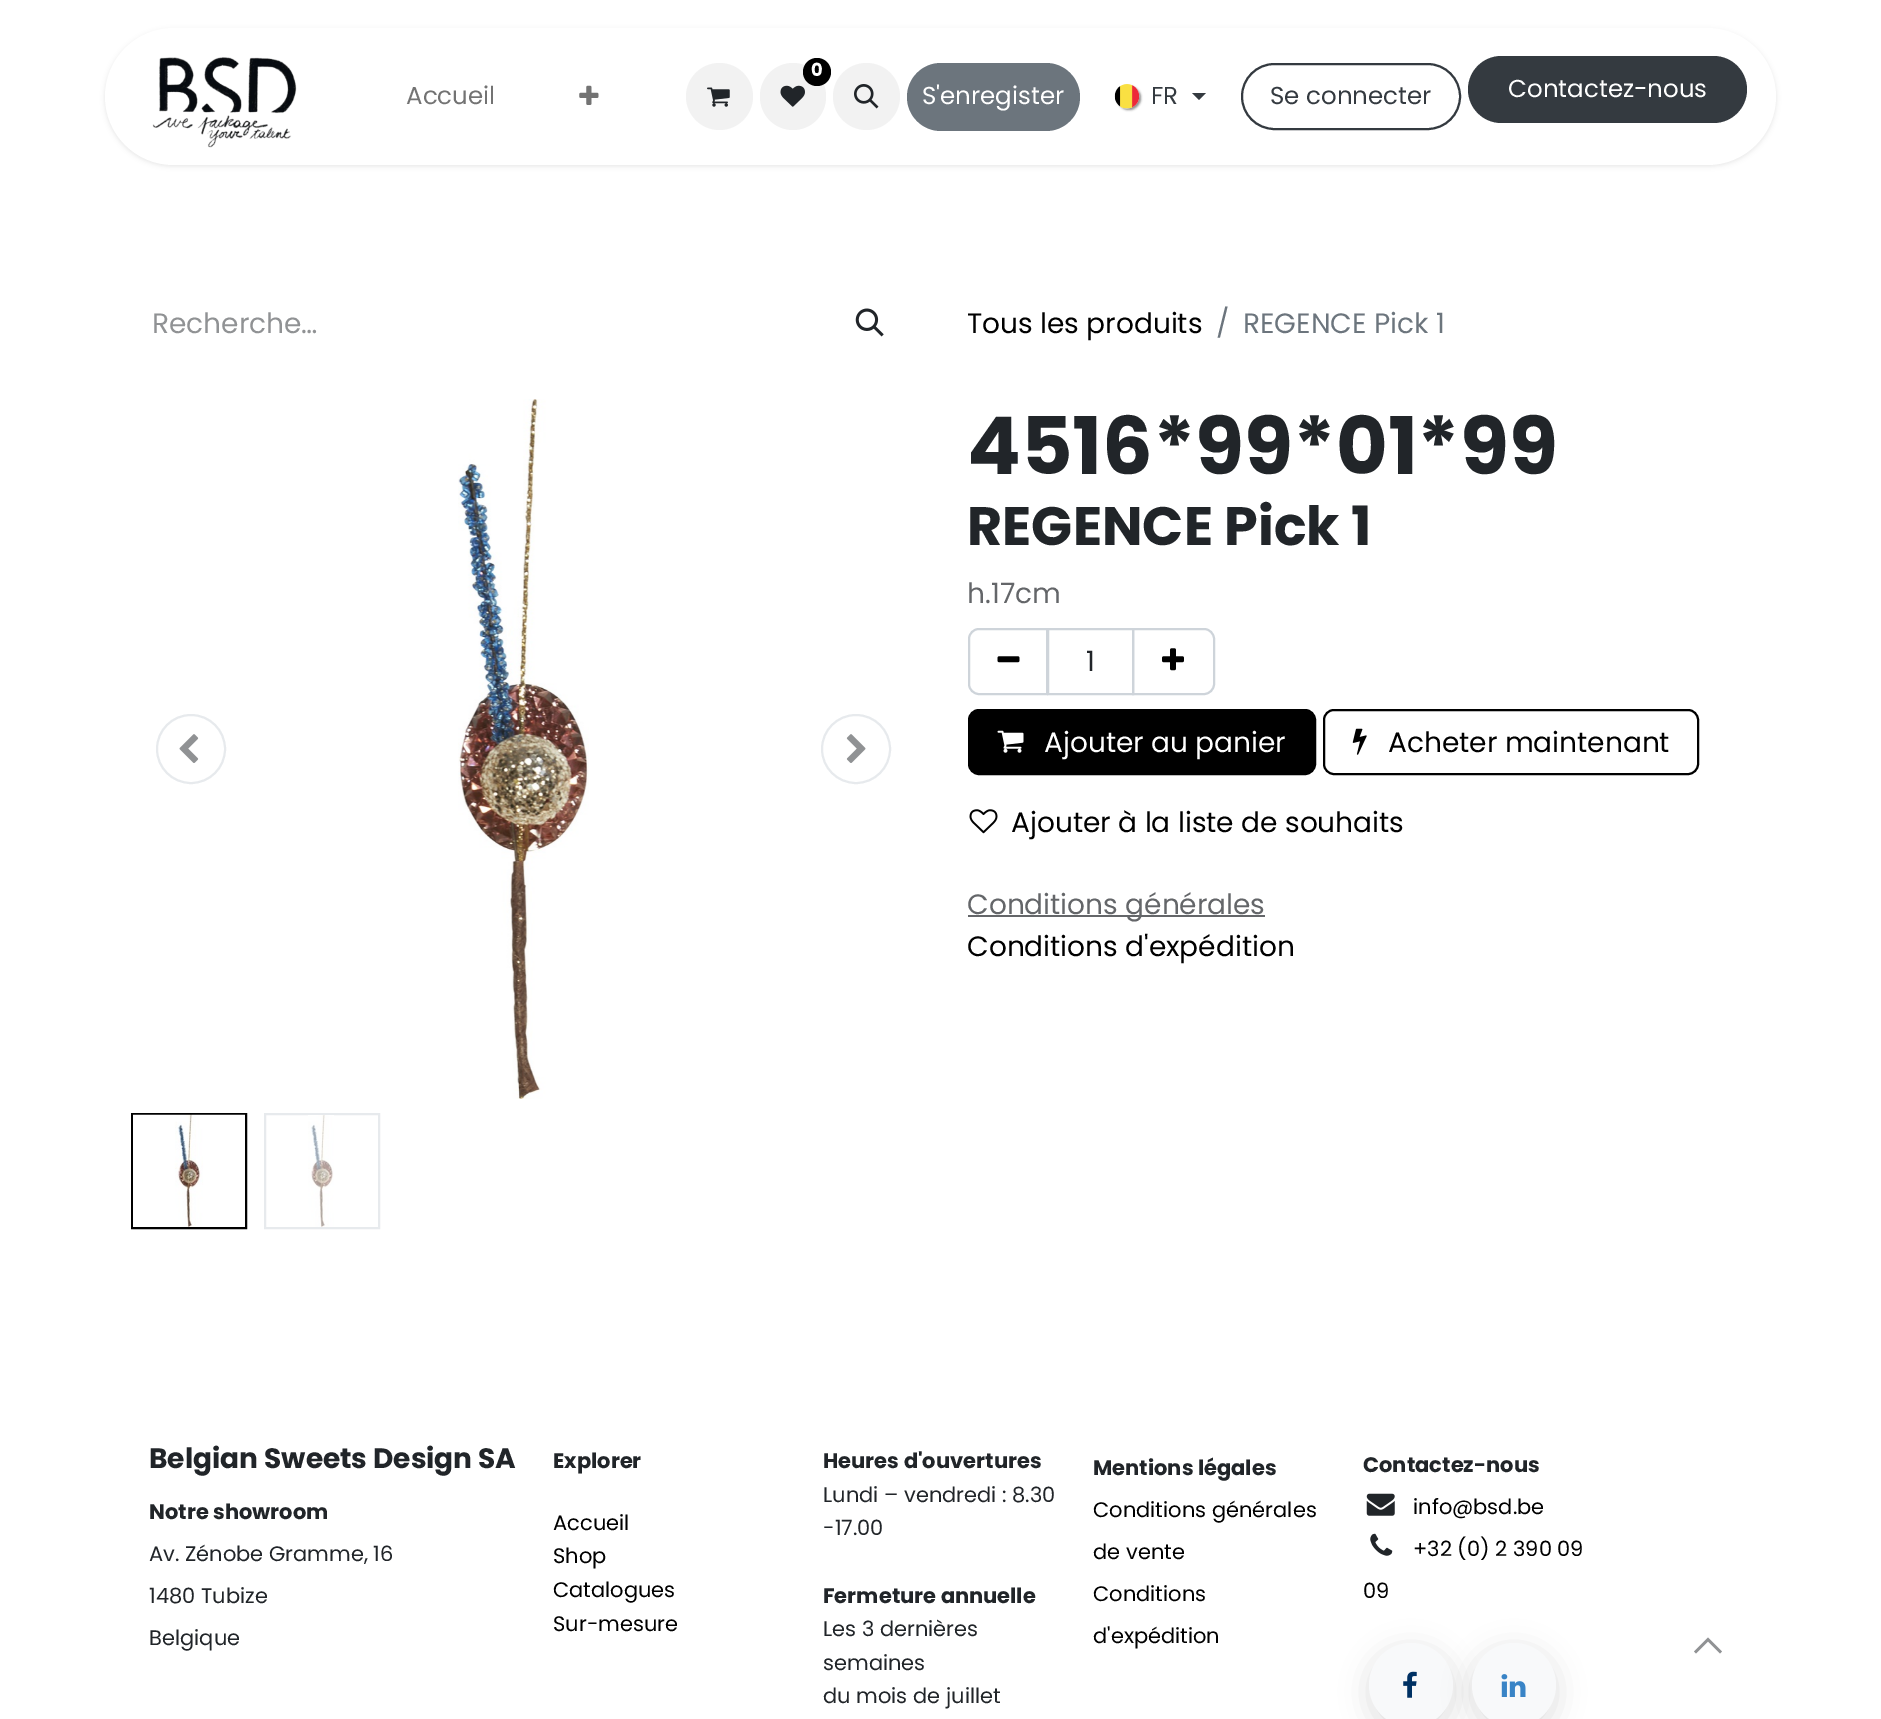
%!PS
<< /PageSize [1881 1719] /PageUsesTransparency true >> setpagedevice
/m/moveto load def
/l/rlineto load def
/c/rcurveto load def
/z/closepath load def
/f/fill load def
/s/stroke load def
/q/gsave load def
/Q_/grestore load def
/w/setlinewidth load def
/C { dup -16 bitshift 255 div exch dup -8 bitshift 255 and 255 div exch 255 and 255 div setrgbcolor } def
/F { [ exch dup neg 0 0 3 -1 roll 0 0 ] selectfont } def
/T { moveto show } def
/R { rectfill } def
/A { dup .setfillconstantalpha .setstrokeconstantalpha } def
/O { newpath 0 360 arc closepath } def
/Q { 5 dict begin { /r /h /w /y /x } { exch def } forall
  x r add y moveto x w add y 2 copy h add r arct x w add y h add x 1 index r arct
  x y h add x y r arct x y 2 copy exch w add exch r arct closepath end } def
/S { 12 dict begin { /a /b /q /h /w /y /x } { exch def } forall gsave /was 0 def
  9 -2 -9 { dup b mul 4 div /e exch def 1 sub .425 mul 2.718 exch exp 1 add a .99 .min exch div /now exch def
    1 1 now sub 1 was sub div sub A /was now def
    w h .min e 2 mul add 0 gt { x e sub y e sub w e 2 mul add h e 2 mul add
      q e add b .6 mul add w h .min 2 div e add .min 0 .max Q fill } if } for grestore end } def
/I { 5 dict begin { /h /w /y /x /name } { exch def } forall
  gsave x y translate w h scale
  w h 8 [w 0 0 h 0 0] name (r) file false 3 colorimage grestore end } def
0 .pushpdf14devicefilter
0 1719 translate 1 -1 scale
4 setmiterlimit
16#FFFFFF C
0 0 1881 1719 R
16#000000 C
105 30 1671 136 68 2.5 .1 S
16#FFFFFF C
105 28 1671 137 68.5 Q f
(1.rgb) 152 57 145 91 I
/Poppins-Regular 24.5 F
16#737373 C
(Accueil) 406 104 T
(2.rgb) 579 85 20 20 I
16#F2F2F2 C
719.5 96.5 33.5 O f
(3.rgb) 707 87 23 20 I
760 63 66 67 33 Q f
(4.rgb) 780 85 25 22 I
16#000000 C
817 72 14 O f
/Poppins-Bold 18 F
16#FFFFFF C
(0) 811 76 T
16#F2F2F2 C
866.5 96.5 33.5 O f
(5.rgb) 854 84 25 25 I
16#6C757D C
907 63 173 68 34 Q f
/Poppins-Regular 24.5 F
16#FFFFFF C
(S'enregister) 922 104 T
16#000000 C
1117 86 24 24 12 1 .43 S
(6.rgb) 1114 84 26 25 I
16#343A40 C
(FR) 1151 104 T
1192 93 m 14 0 l -7 7 l z f
2 w
1242 64 218 65 32.5 Q s
(Se connecter) 1270 104 T
1468 56 279 67 33.5 Q f
16#FFFFFF C
(Contactez-nous) 1508 97 T
/Poppins-Regular 28 F
16#909294 C
(Recherche…) 152 333 T
(7.rgb) 855 308 29 29 I
16#000000 C
(Tous les produits) 967 333 T
16#6C757D C
(/) 1216 333 T
(REGENCE Pick 1) 1243 333 T
16#E7EAED C
191 749 34 O s
(8.rgb) 179 734 20 29 I
(9.rgb) 458 399 131 700 I
856 749 34 O s
(10.rgb) 846 734 20 29 I
16#000000 C
132 1114 114 114 rectstroke
(11.rgb) 133 1114 112 113 I
16#E7EAED C
265 1114 114 114 rectstroke
(12.rgb) 308 1115 26 112 I
/Poppins-Bold 79.5 F
16#212529 C
(4516*99*01*99) 967 474 T
/Poppins-Bold 54 F
(REGENCE Pick 1) 967 545 T
/Poppins-Regular 28 F
16#646669 C
(h.17cm) 967 603 T
16#CED4DA C
1048 629 85 65 rectstroke
979 629 m 68 0 l 0 65 l -68 0 l -5.5 0 -10 -4.5 -10 -10 c 0 -45 l 0 -5.5 4.5 -10 10 -10 c z s
(13.rgb) 997 656 23 7 I
16#212529 C
(1) 1086 671 T
16#CED4DA C
1133 629 m 71 0 l 5.5 0 10 4.5 10 10 c 0 45 l 0 5.5 -4.5 10 -10 10 c -71 0 l z s
(14.rgb) 1162 648 22 23 I
16#000000 C
969 710 346 64 10 Q q f Q_
s
(15.rgb) 997 730 27 23 I
16#FFFFFF C
(Ajouter au panier) 1044 752 T
16#000000 C
1324 710 374 64 10 Q s
(16.rgb) 1352 728 15 27 I
(Acheter maintenant) 1388 752 T
(17.rgb) 969 809 29 25 I
(Ajouter à la liste de souhaits) 1011 832 T
16#646669 C
968 915 297 2 R
(Conditions générales) 967 914 T
16#000000 C
(Conditions d'expédition) 967 956 T
/Poppins-Bold 28 F
16#212529 C
(Belgian Sweets Design SA) 149 1468 T
/Poppins-Bold 21 F
(Notre showroom) 149 1519 T
/Poppins-Regular 21 F
(Av. Zénobe Gramme, 16) 149 1561 T
(1480 Tubize) 149 1603 T
(Belgique) 149 1645 T
/Poppins-Bold 21 F
(Explorer) 553 1468 T
/Poppins-Regular 21 F
16#000000 C
(Accueil) 553 1530 T
(Shop) 553 1563 T
(Catalogues) 553 1597 T
(Sur-mesure) 553 1631 T
/Poppins-Bold 21 F
16#212529 C
(Heures d'ouvertures) 823 1468 T
/Poppins-Regular 21 F
(Lundi – vendredi : 8.30) 823 1502 T
(-17.00) 823 1535 T
/Poppins-Bold 21 F
(Fermeture annuelle) 823 1603 T
/Poppins-Regular 21 F
(Les 3 dernières) 823 1636 T
(semaines) 823 1670 T
(du mois de juillet) 823 1703 T
/Poppins-Bold 21 F
(Mentions légales) 1093 1475 T
/Poppins-Regular 21 F
16#000000 C
(Conditions générales) 1093 1517 T
(de vente) 1093 1559 T
(Conditions) 1093 1601 T
(d'expédition) 1093 1643 T
/Poppins-Bold 21 F
16#212529 C
(Contactez-nous) 1363 1472 T
(18.rgb) 1366 1493 29 23 I
/Poppins-Regular 21 F
16#000000 C
(info@bsd.be) 1413 1514 T
(19.rgb) 1370 1533 23 23 I
(+32 \(0\) 2 390 09) 1413 1556 T
(09) 1363 1598 T
1369 1650 84 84 42 14 .12 S
16#F8F9FA C
1411 1685 42 O f
(20.rgb) 1403 1671 14 27 I
16#000000 C
1472 1650 84 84 42 14 .12 S
16#F8F9FA C
1514 1685 42 O f
(21.rgb) 1501 1674 25 23 I
16#909294 C
1708 1637.5 m 14 14 l -2 2 l -12 -12 l -12 12 l -2 -2 l z f
.poppdf14devicefilter showpage
